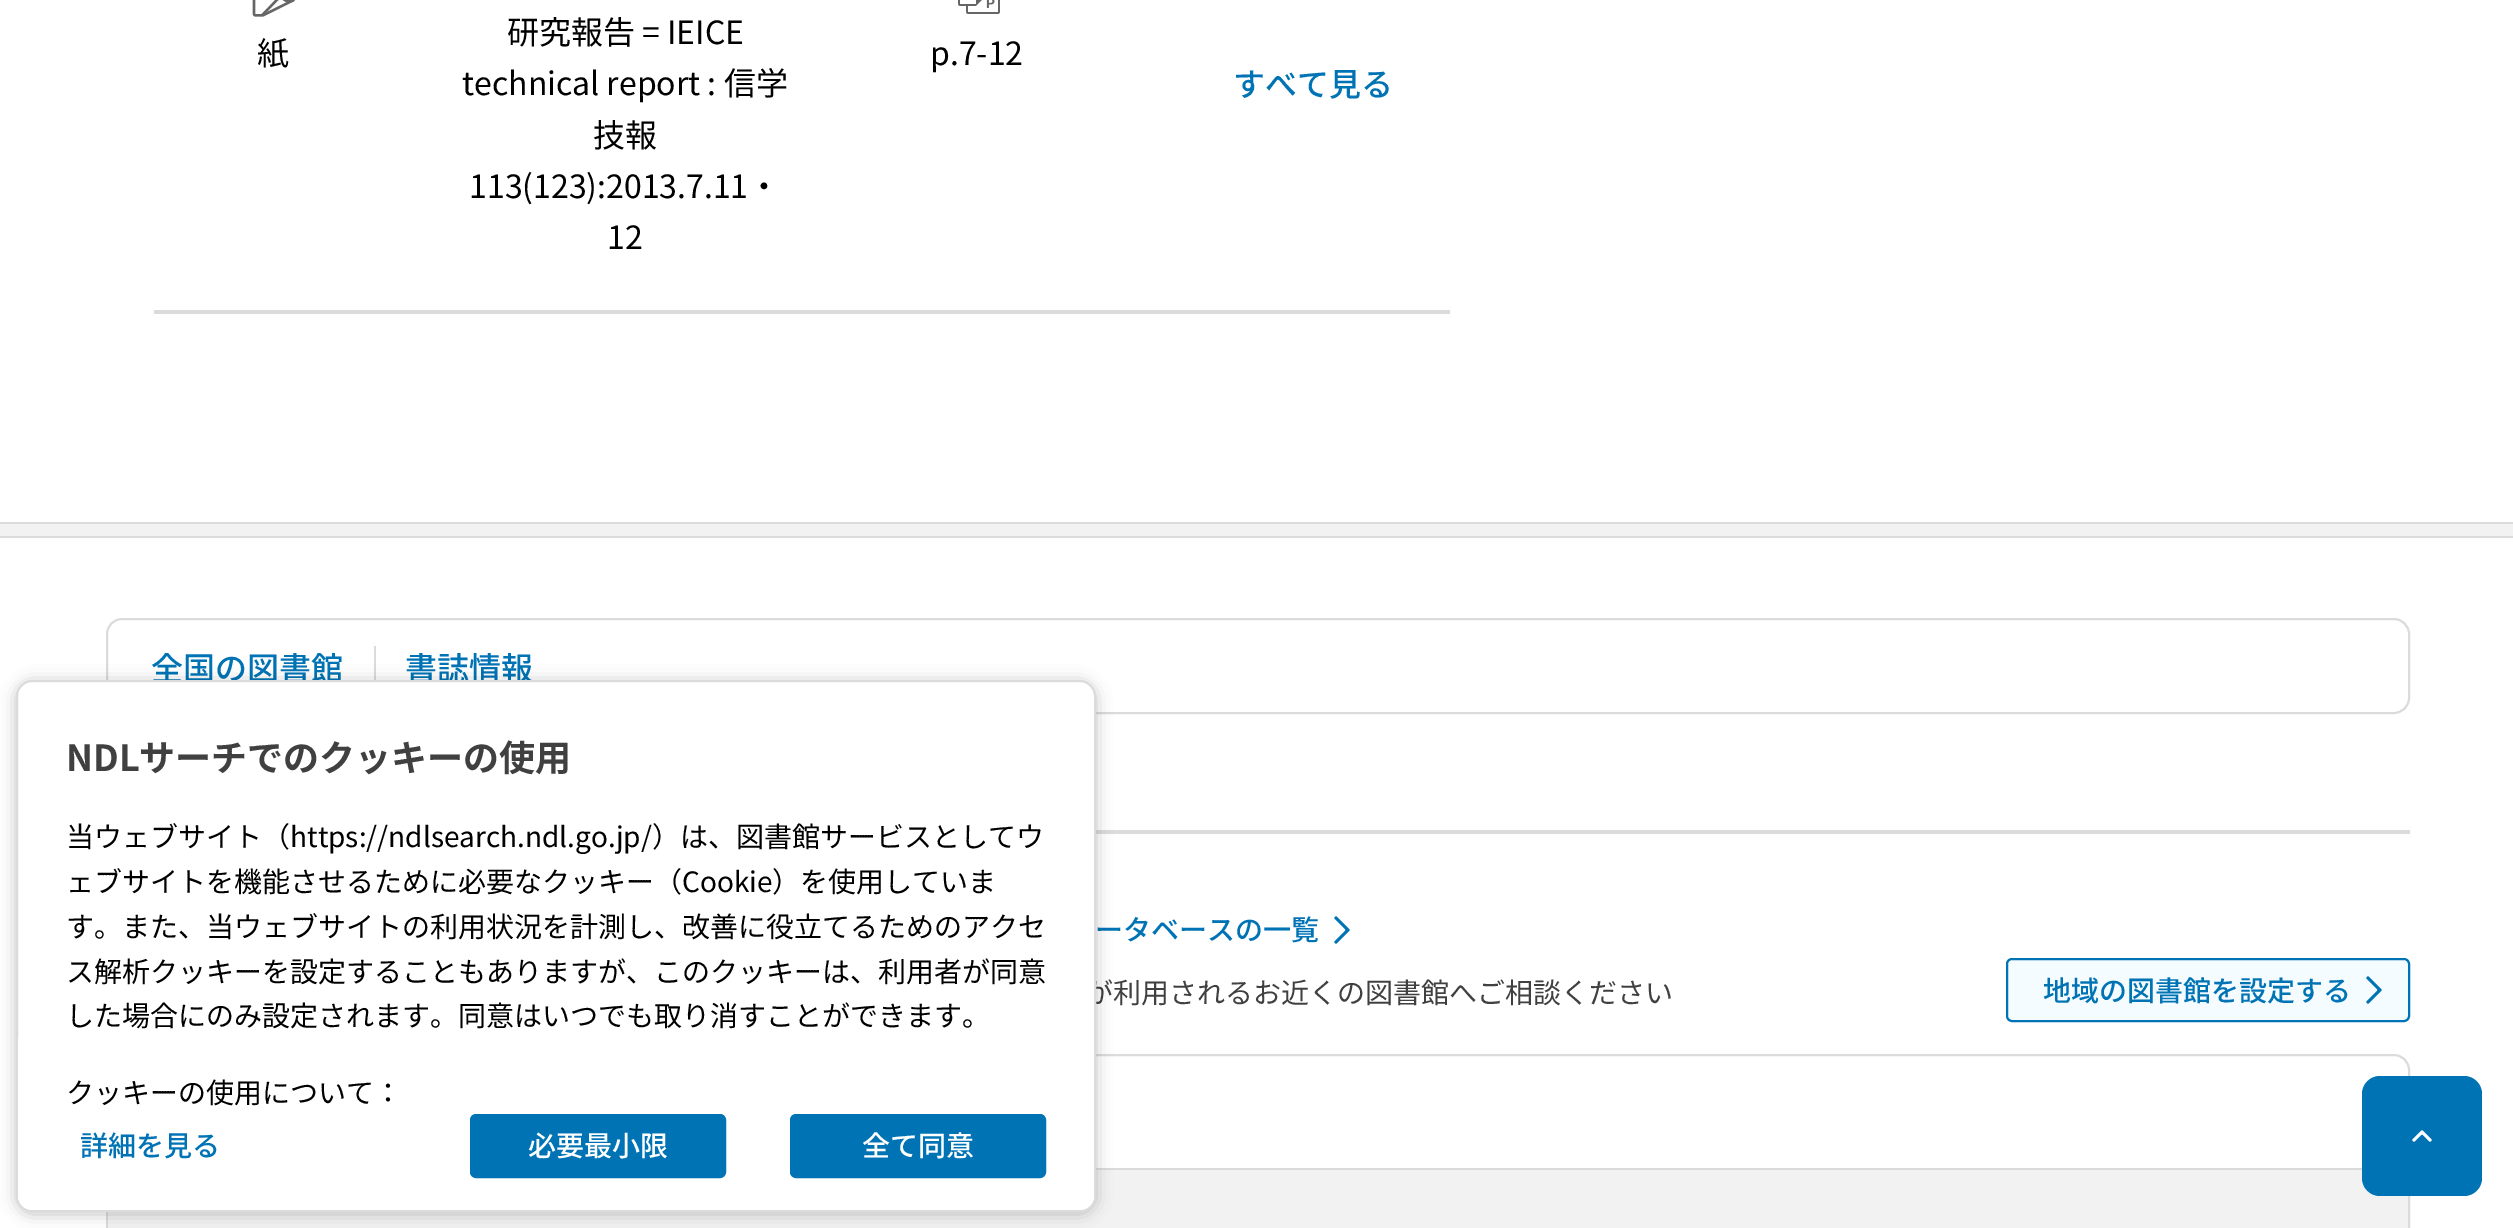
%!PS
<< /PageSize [2513 1228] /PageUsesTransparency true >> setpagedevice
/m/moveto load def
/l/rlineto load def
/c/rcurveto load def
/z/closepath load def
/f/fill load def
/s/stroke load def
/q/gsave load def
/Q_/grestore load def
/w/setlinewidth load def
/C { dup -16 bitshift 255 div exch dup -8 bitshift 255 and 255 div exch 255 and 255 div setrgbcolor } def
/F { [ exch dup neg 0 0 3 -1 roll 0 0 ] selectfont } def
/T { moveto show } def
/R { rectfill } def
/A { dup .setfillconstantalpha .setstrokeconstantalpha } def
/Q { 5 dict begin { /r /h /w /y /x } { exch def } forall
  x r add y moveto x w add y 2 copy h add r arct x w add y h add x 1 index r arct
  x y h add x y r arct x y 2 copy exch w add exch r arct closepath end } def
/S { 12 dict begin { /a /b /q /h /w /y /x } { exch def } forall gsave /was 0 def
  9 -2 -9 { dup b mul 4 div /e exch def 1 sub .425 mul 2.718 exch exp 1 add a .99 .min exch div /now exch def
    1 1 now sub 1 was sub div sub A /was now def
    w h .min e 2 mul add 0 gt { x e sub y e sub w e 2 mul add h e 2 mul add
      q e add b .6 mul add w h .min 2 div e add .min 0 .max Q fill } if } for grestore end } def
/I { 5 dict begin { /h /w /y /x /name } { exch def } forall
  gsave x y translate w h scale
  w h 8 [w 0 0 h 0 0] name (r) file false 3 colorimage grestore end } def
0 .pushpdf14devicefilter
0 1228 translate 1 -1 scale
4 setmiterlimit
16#FFFFFF C
0 0 2513 1228 R
(1.rgb) 252 0 43 17 I
/NotoSansJP-Regular 32 F
16#000000 C
(紙) 257 65 T
(研究報告 = IEICE) 507 44 T
(technical report : 信学) 462 95 T
(技報) 593 147 T
(113\(123\):2013.7.11・) 469 198 T
(12) 607 249 T
(2.rgb) 958 0 42 14 I
(p.7-12) 930 65 T
/NotoSansJP-Medium 32 F
16#0073B5 C
(すべて見る) 1233 96 T
16#DBDBDB C
154 310 1296 4 R
16#F2F2F2 C
0 524 2513 12 R
16#DBDBDB C
0 522 2513 2 R
0 536 2513 2 R
2 w
107 619 2302 94 15 Q s
16#0073B5 C
(全国の図書館) 151 680 T
16#DBDBDB C
374 646 2 40 R
16#0073B5 C
(書誌情報) 405 680 T
16#DBDBDB C
1096 830 1314 4 R
/NotoSansJP-Medium 28 F
16#0073B5 C
(ータベースの一覧) 1095 940 T
(3.rgb) 1334 916 16 28 I
/NotoSansJP-Regular 28 F
16#404040 C
(が利用されるお近くの図書館へご相談ください) 1085 1003 T
16#F5FCFF C
2007 959 402 62 5 Q q f Q_
16#0073B5 C
s
/NotoSansJP-Medium 28 F
(地域の図書館を設定する) 2043 1001 T
(4.rgb) 2366 976 16 28 I
16#DBDBDB C
107 1055 2302 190 15 Q s
16#F2F2F2 C
108 1170 2300 58 R
16#DBDBDB C
1096 1168 1266 2 R
16#000000 C
16 682 1080 532 16 8 .24 S
16#FFFFFF C
17 681 1078 530 15 Q q f Q_
16#DBDBDB C
s
/NotoSansJP-Bold 36 F
16#404040 C
(NDLサーチでのクッキーの使用) 66 771 T
/NotoSansJP-Regular 28 F
16#000000 C
(当ウェブサイト（https://ndlsearch.ndl.go.jp/）は、図書館サービスとしてウ) 66 847 T
(ェブサイトを機能させるために必要なクッキー（Cookie）を使用していま) 66 892 T
(す。また、当ウェブサイトの利用状況を計測し、改善に役立てるためのアクセ) 66 937 T
(ス解析クッキーを設定することもありますが、このクッキーは、利用者が同意) 66 982 T
(した場合にのみ設定されます。同意はいつでも取り消すことができます。) 66 1026 T
16#FFFFFF C
18 1038 m 1076 0 l 0 158 l 0 7.5 -6.5 14 -14 14 c -1048 0 l -7.5 0 -14 -6.5 -14 -14 c z f
16#000000 C
(クッキーの使用について：) 66 1103 T
/NotoSansJP-Medium 28 F
16#0073B5 C
(詳細を見る) 80 1156 T
471 1115 254 62 5 Q q f Q_
s
16#FFFFFF C
(必要最小限) 528 1156 T
16#0073B5 C
791 1115 254 62 5 Q q f Q_
s
16#FFFFFF C
(全て同意) 862 1156 T
16#0073B5 C
2362 1076 120 120 18 Q f
(5.rgb) 2412 1130 20 12 I
.poppdf14devicefilter showpage
